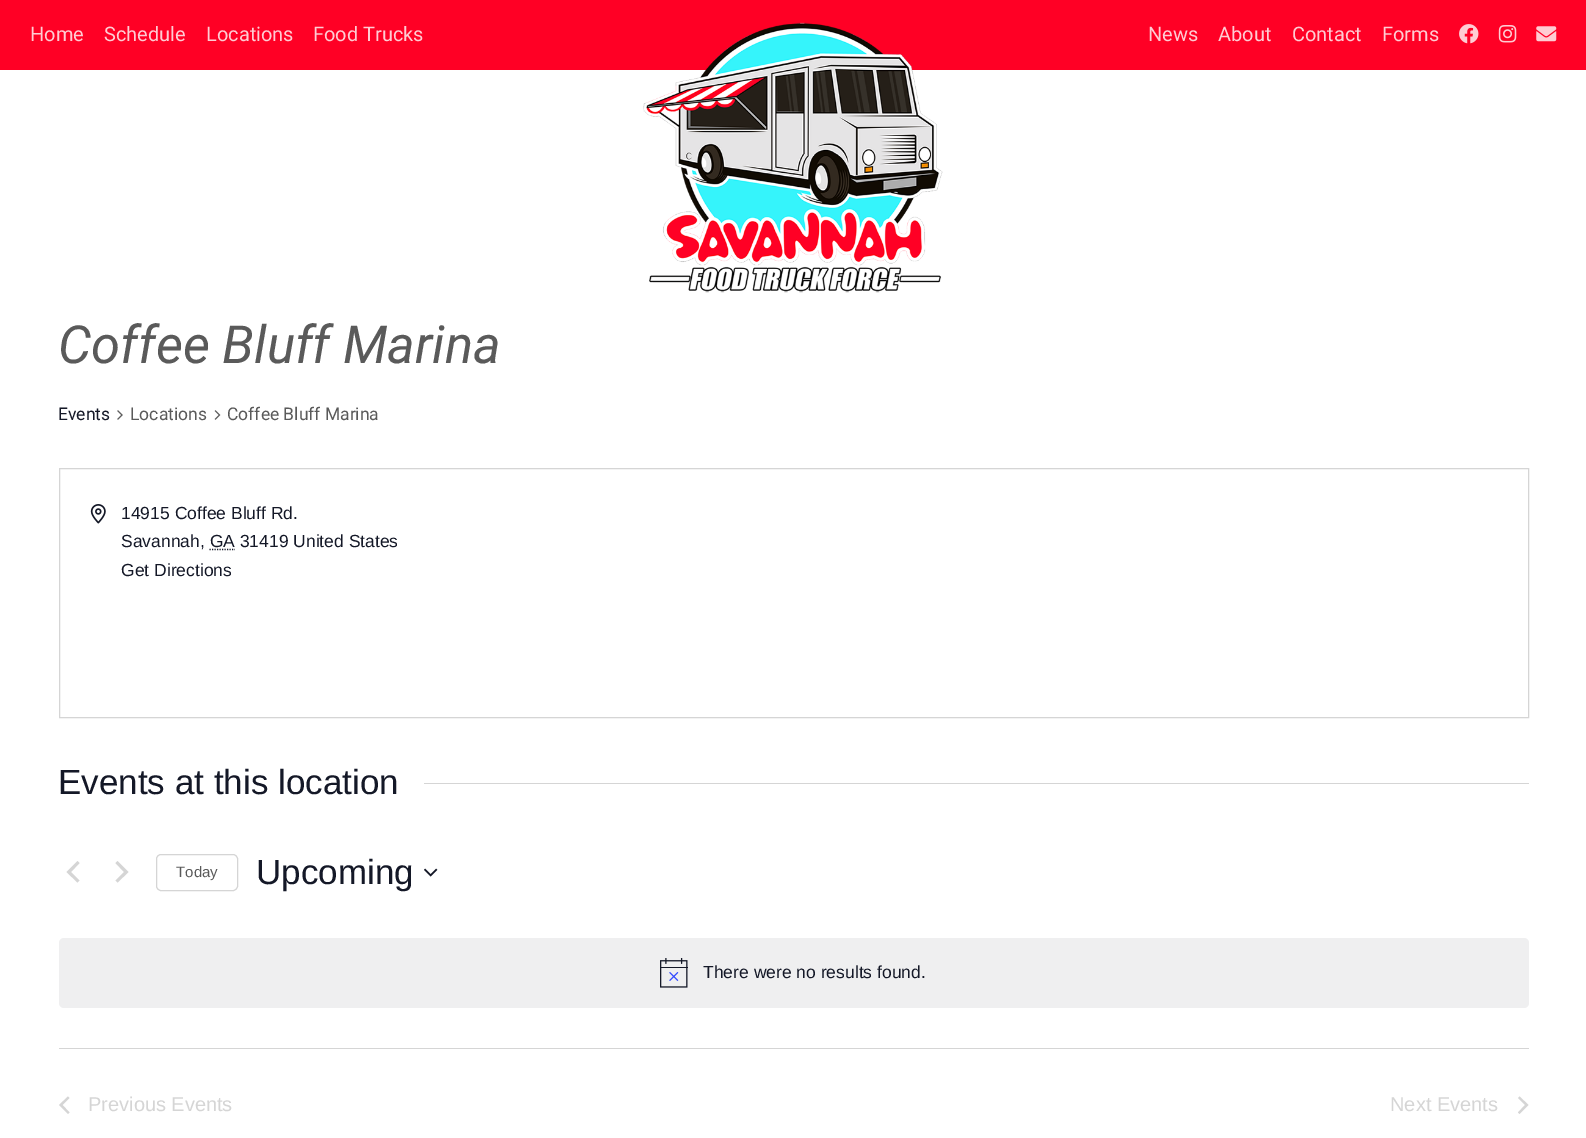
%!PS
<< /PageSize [1586 1138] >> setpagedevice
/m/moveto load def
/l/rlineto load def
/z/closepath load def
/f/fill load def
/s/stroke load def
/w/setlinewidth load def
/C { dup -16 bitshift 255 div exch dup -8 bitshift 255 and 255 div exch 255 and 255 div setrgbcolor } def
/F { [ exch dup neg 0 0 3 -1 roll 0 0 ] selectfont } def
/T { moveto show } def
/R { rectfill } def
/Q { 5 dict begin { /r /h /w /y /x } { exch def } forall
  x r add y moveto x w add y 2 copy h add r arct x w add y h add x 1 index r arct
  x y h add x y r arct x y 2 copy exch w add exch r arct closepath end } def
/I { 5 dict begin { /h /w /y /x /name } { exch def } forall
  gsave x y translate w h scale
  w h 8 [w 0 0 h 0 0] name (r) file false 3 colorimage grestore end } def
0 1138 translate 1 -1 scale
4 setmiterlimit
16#FFFFFF C
0 0 1586 1138 R
16#FF0025 C
0 0 1586 70 R
(1.rgb) 643 22 300 271 I
/Roboto-Regular 20 F
16#FFCCD3 C
(Home) 30 41 T
(Schedule) 104 41 T
(Locations) 206 41 T
(Food Trucks) 313 41 T
(News) 1148 41 T
(About) 1218 41 T
(Contact) 1292 41 T
(Forms) 1382 41 T
(2.rgb) 1459 24 20 20 I
(3.rgb) 1498 25 19 18 I
(4.rgb) 1536 26 21 16 I
/Roboto-Italic 52.5 F
16#5A5A5A C
(Coffee Bluff Marina) 58 363 T
/Roboto-Regular 17.5 F
16#141827 C
(Events) 58 420 T
(5.rgb) 117 410 6 10 I
16#5A5A5A C
(Locations) 130 420 T
(6.rgb) 214 410 7 10 I
(Coffee Bluff Marina) 227 420 T
16#D5D5D5 C
59.5 468.5 1469 249 rectstroke
(7.rgb) 90 504 16 20 I
/LiberationSans-Regular 17.5 F
16#141827 C
(14915 Coffee Bluff Rd.) 121 519 T
(Savannah, GA 31419 United States) 121 547 T
1.2 w
[1.25 1.25] 0 setdash
209.5 549.5 m 25.5 0 l s
(Get Directions) 121 576 T
/LiberationSans-Regular 35 F
(Events at this location) 58 794 T
16#D5D5D5 C
424 783 1105 1 R
79.5 880.5 m -2 2 l -11 -10.5 l 11 -11 l 2 2 l -8.5 9 l z 115.5 863 m 2 -2 l 11 11 l -11 10.5 l -2 -2 l 8.5 -8.5 l z f
1 w
[] 0 setdash
156.5 854.5 81 36 4.5 Q s
/LiberationSans-Regular 15 F
16#5A5A5A C
(Today) 176 877 T
/LiberationSans-Regular 35 F
16#141827 C
(Upcoming) 256 884 T
(8.rgb) 424 868 14 9 I
16#EFEFF0 C
59 938 1470 70 5 Q f
(9.rgb) 660 958 28 30 I
/LiberationSans-Regular 17.5 F
16#141827 C
(There were no results found.) 703 978 T
16#D5D5D5 C
59 1048 1470 1 R
69.5 1112.5 m -1.5 1.5 l -9 -9 l 9 -8.5 l 1.5 1.5 l -7 7 l z f
/LiberationSans-Regular 20 F
(Previous Events) 88 1111 T
(Next Events) 1390 1111 T
1518 1098 m 1.5 -1.5 l 9 8.5 l -9 9 l -1.5 -1.5 l 7 -7.5 l z f
showpage
